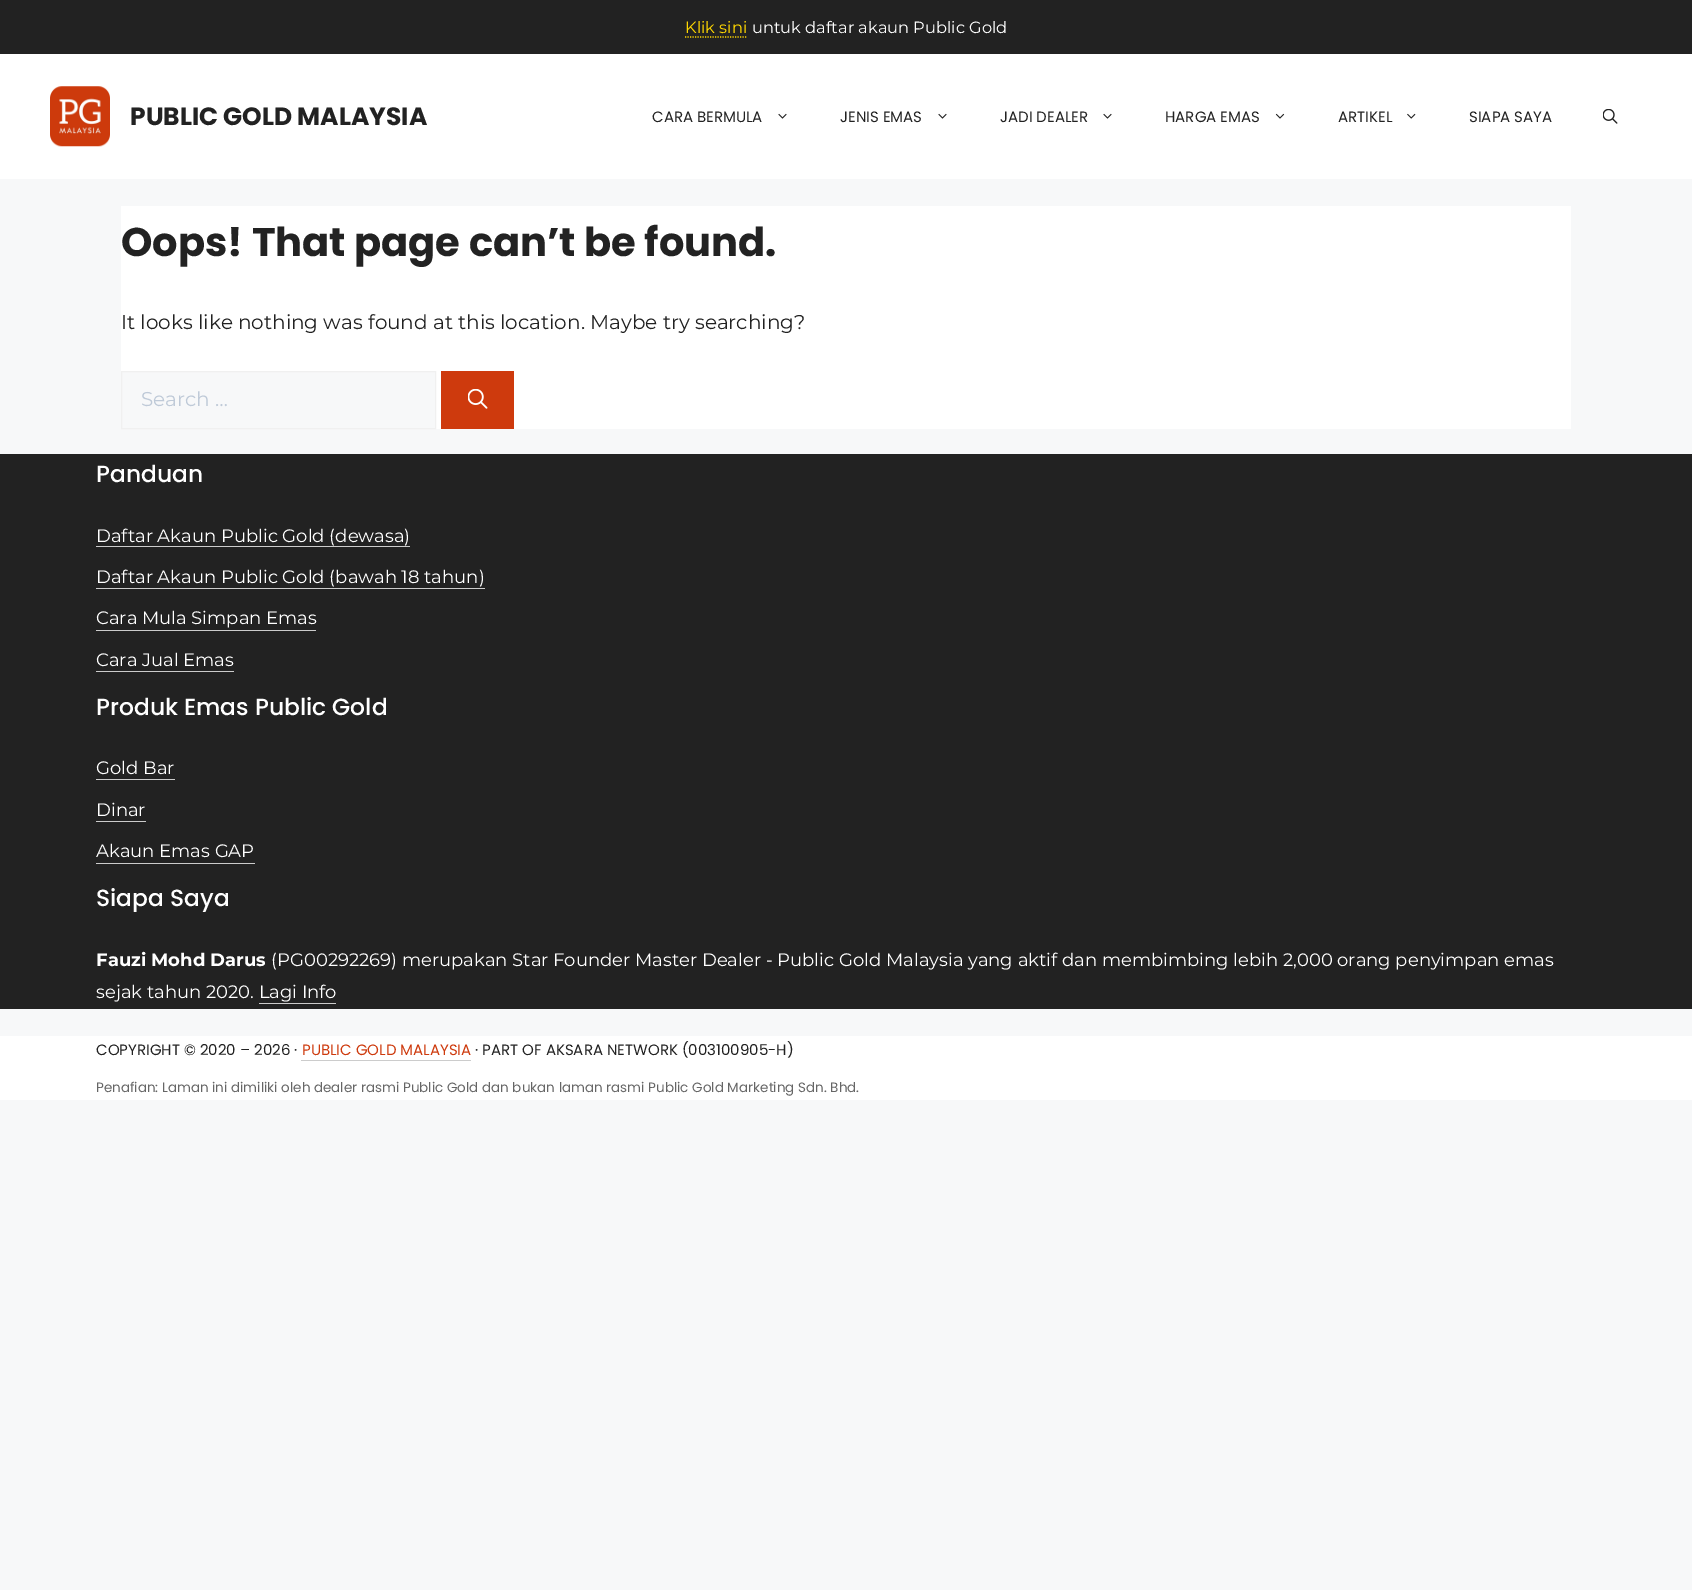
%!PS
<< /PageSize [1692 1590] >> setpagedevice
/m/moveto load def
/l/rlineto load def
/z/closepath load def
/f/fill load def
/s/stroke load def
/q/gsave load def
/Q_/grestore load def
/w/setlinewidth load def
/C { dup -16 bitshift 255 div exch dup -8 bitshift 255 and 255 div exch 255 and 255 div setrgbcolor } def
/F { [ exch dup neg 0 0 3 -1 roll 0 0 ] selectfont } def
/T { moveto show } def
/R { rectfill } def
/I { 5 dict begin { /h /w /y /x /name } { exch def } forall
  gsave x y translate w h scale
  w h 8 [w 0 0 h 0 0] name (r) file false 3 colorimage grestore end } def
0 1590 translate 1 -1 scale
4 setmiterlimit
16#F7F8F9 C
0 0 1692 1590 R
16#222222 C
0 0 1692 54 R
/Montserrat-Regular 16.25 F
16#FFD700 C
(Klik sini) 685 33 T
1.2 w
[1.25 1.25] 0 setdash
685 37 m 62.5 0 l s
16#FFFFFF C
(untuk daftar akaun Public Gold) 752 33 T
0 54 1692 125 R
(1.rgb) 50 86 60 61 I
/Poppins-Bold 25 F
16#222222 C
(PUBLIC GOLD MALAYSIA) 130 125 T
/Poppins-Regular 15 F
(CARA BERMULA) 652 122 T
(2.rgb) 778 113 9 6 I
(JENIS EMAS) 840 122 T
(2.rgb) 938 113 9 6 I
(JADI DEALER) 1000 122 T
(2.rgb) 1103 113 9 6 I
(HARGA EMAS) 1165 122 T
(3.rgb) 1275 113 10 6 I
(ARTIKEL) 1338 122 T
(4.rgb) 1407 113 9 6 I
(SIAPA SAYA) 1469 122 T
(5.rgb) 1603 109 15 15 I
16#FFFFFF C
121 206 1450 223 R
/Poppins-Bold 40 F
16#222222 C
(Oops! That page can’t be found.) 121 256 T
/Montserrat-Regular 20 F
(It looks like nothing was found at this location. Maybe try searching?) 121 329 T
16#F7F8F9 C
121.5 371.5 m 314 0 l 0 57 l -314 0 l z q f Q_
16#F0F0F0 C
1 w
[] 0 setdash
s
16#BFCAD8 C
(Search …) 141 406 T
16#CE3A0D C
441 371 73 58 R
(6.rgb) 468 389 20 20 I
16#222222 C
0 454 1692 555 R
/Poppins-Medium 23.4 F
16#FFFFFF C
(Panduan) 96 482 T
/Montserrat-Regular 18 F
(Daftar Akaun Public Gold \(dewasa\)) 96 542 T
16#CCCCCC C
96 546 314 1 R
16#FFFFFF C
(Daftar Akaun Public Gold \(bawah 18 tahun\)) 96 583 T
16#CCCCCC C
96 588 389 1 R
16#FFFFFF C
(Cara Mula Simpan Emas) 96 624 T
16#CCCCCC C
96 630 220 1 R
16#FFFFFF C
(Cara Jual Emas) 96 666 T
16#CCCCCC C
96 671 138 1 R
/Poppins-Medium 23.4 F
16#FFFFFF C
(Produk Emas Public Gold) 96 715 T
/Montserrat-Regular 18 F
(Gold Bar) 96 774 T
16#CCCCCC C
96 779 79 1 R
16#FFFFFF C
(Dinar) 96 816 T
16#CCCCCC C
96 821 50 1 R
16#FFFFFF C
(Akaun Emas GAP) 96 857 T
16#CCCCCC C
96 863 159 1 R
/Poppins-Medium 23.4 F
16#FFFFFF C
(Siapa Saya) 96 906 T
/Montserrat-Bold 18 F
(Fauzi Mohd Darus) 96 966 T
/Montserrat-Regular 18 F
(\(PG00292269\) merupakan Star Founder Master Dealer - Public Gold Malaysia yang aktif dan membimbing lebih 2,000 orang penyimpan emas) 271 966 T
(sejak tahun 2020. Lagi Info) 96 998 T
16#CCCCCC C
259 1003 77 1 R
16#FFFFFF C
0 1036 1692 64 R
/Poppins-Regular 15 F
16#222222 C
(COPYRIGHT © 2020 – 2026 ·) 96 1055 T
16#CE3A0D C
(PUBLIC GOLD MALAYSIA) 302 1055 T
16#CCCCCC C
301 1060 170 1 R
16#222222 C
(· PART OF AKSARA NETWORK \(003100905-H\)) 475 1055 T
/Poppins-Regular 13.5 F
16#666666 C
(Penafian: Laman ini dimiliki oleh dealer rasmi Public Gold dan bukan laman rasmi Public Gold Marketing Sdn. Bhd.) 96 1092 T
showpage
